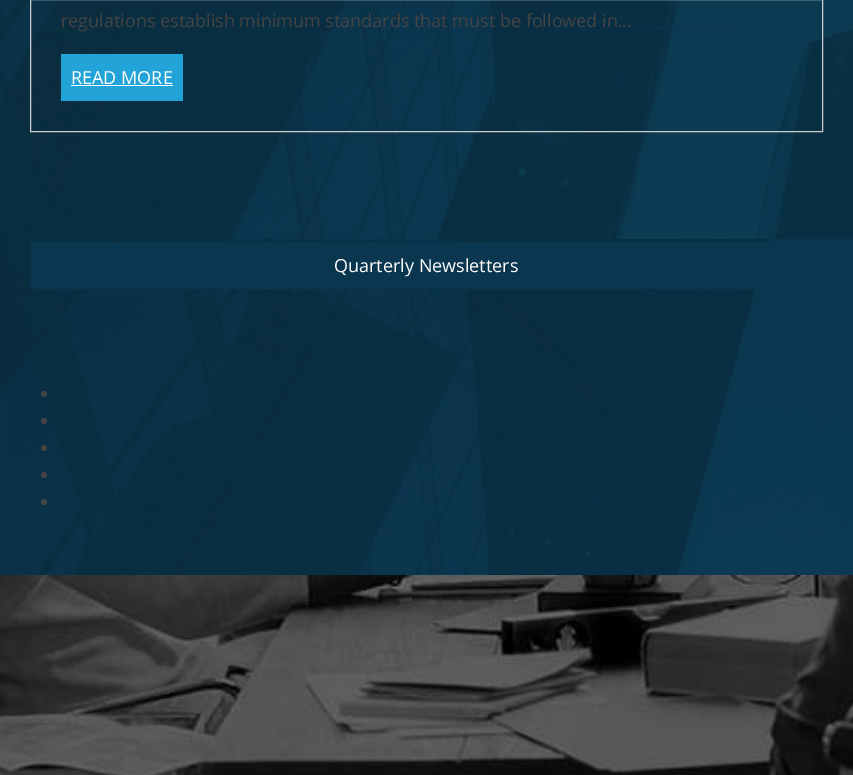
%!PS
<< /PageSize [853 775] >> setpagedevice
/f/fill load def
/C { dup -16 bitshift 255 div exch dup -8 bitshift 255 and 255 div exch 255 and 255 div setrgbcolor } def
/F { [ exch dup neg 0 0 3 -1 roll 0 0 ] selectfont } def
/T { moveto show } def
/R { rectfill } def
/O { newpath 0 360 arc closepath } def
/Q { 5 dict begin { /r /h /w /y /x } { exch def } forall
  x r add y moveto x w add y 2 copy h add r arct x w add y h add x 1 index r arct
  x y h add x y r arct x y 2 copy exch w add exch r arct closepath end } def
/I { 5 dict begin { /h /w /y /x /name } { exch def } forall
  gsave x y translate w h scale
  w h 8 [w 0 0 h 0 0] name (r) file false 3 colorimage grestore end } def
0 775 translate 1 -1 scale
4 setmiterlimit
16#FFFFFF C
0 0 853 775 R
(1.rgb) 0 0 853 575 I
16#CCCCCC C
30.5 -.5 792 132 rectstroke
/OpenSans-Regular 18 F
16#444444 C
(regulations establish minimum standards that must be followed in...) 61 27 T
16#0A364F C
637 28 97 1 R
16#22A4D8 C
61 54 122 47 R
16#FFFFFF C
(READ MORE) 71 84 T
71 85 102 1 R
16#0A364F C
30 242 793 47 3 Q f
16#FFFFFF C
(Quarterly Newsletters) 334 272 T
16#444444 C
44 394 3 O f
44 421 3 O f
44 448 3 O f
44 475 3 O f
44 502 3 O f
(2.rgb) 0 575 853 200 I
showpage
